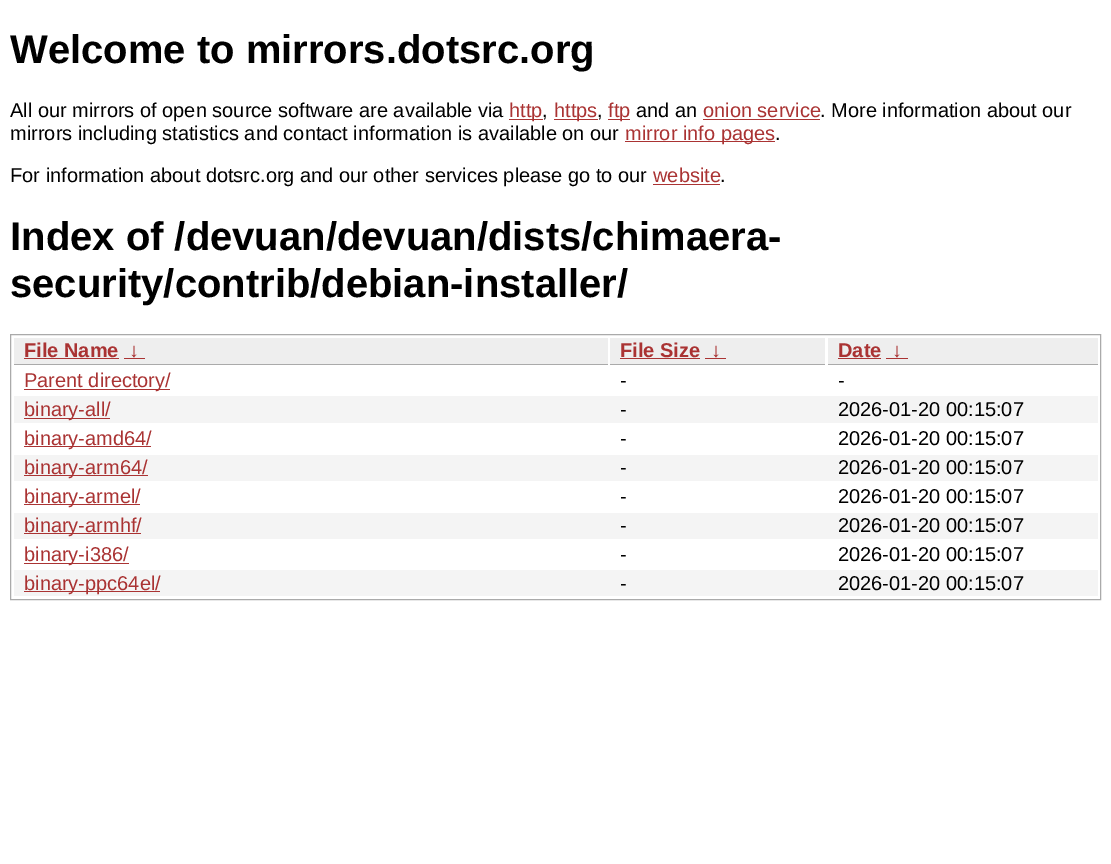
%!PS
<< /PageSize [1111 864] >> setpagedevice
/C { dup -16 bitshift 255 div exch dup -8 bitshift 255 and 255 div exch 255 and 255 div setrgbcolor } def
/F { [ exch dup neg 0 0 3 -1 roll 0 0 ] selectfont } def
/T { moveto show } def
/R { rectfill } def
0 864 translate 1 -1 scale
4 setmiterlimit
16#FFFFFF C
0 0 1111 864 R
/LiberationSans-Bold 40 F
16#000000 C
(Welcome to mirrors.dotsrc.org) 10 63 T
/LiberationSans-Regular 20 F
(All our mirrors of open source software are available via) 10 117 T
16#AA3333 C
509 119 34 1 R
(http) 509 117 T
16#000000 C
(,) 542 117 T
16#AA3333 C
554 119 44 1 R
(https) 554 117 T
16#000000 C
(,) 597 117 T
16#AA3333 C
608 119 22 1 R
(ftp) 608 117 T
16#000000 C
(and an) 636 117 T
16#AA3333 C
(onion service) 703 117 T
703 119 117 1 R
16#000000 C
(. More information about our) 820 117 T
(mirrors including statistics and contact information is available on our) 10 140 T
16#AA3333 C
625 141 150 1 R
(mirror info pages) 625 140 T
16#000000 C
(.) 775 140 T
(For information about dotsrc.org and our other services please go to our) 10 182 T
16#AA3333 C
(website) 653 182 T
653 184 67 1 R
16#000000 C
(.) 720 182 T
/LiberationSans-Bold 40 F
(Index of /devuan/devuan/dists/chimaera-) 10 250 T
(security/contrib/debian-installer/) 10 297 T
16#AAAAAA C
10.5 334.5 1090 265 rectstroke
16#EEEEEE C
14 338 594 26 R
16#AAAAAA C
14 364 594 1 R
/LiberationSans-Bold 20 F
16#AA3333 C
(File Name) 24 357 T
24 358 95 1 R
(↓) 129 357 T
124 358 21 1 R
16#EEEEEE C
610 338 215 26 R
16#AAAAAA C
610 364 215 1 R
16#AA3333 C
(File Size) 620 357 T
620 358 80 1 R
(↓) 711 357 T
705 358 21 1 R
16#EEEEEE C
828 338 270 26 R
16#AAAAAA C
828 364 270 1 R
16#AA3333 C
(Date) 838 357 T
838 358 43 1 R
(↓) 892 357 T
886 358 22 1 R
24 389 146 1 R
/LiberationSans-Regular 20 F
(Parent directory/) 24 387 T
16#000000 C
(-) 620 387 T
(-) 838 387 T
16#F4F4F4 C
14 396 1084 27 R
16#AA3333 C
24 418 86 1 R
(binary-all/) 24 416 T
16#000000 C
(-) 620 416 T
(2026-01-20 00:15:07) 838 416 T
16#AA3333 C
24 446 127 1 R
(binary-amd64/) 24 445 T
16#000000 C
(-) 620 445 T
(2026-01-20 00:15:07) 838 445 T
16#F4F4F4 C
14 455 1084 26 R
16#AA3333 C
24 475 124 1 R
(binary-arm64/) 24 474 T
16#000000 C
(-) 620 474 T
(2026-01-20 00:15:07) 838 474 T
16#AA3333 C
24 504 116 1 R
(binary-armel/) 24 503 T
16#000000 C
(-) 620 503 T
(2026-01-20 00:15:07) 838 503 T
16#F4F4F4 C
14 513 1084 26 R
16#AA3333 C
24 533 117 1 R
(binary-armhf/) 24 532 T
16#000000 C
(-) 620 532 T
(2026-01-20 00:15:07) 838 532 T
16#AA3333 C
24 563 105 1 R
(binary-i386/) 24 561 T
16#000000 C
(-) 620 561 T
(2026-01-20 00:15:07) 838 561 T
16#F4F4F4 C
14 570 1084 26 R
16#AA3333 C
24 591 136 1 R
(binary-ppc64el/) 24 590 T
16#000000 C
(-) 620 590 T
(2026-01-20 00:15:07) 838 590 T
showpage
